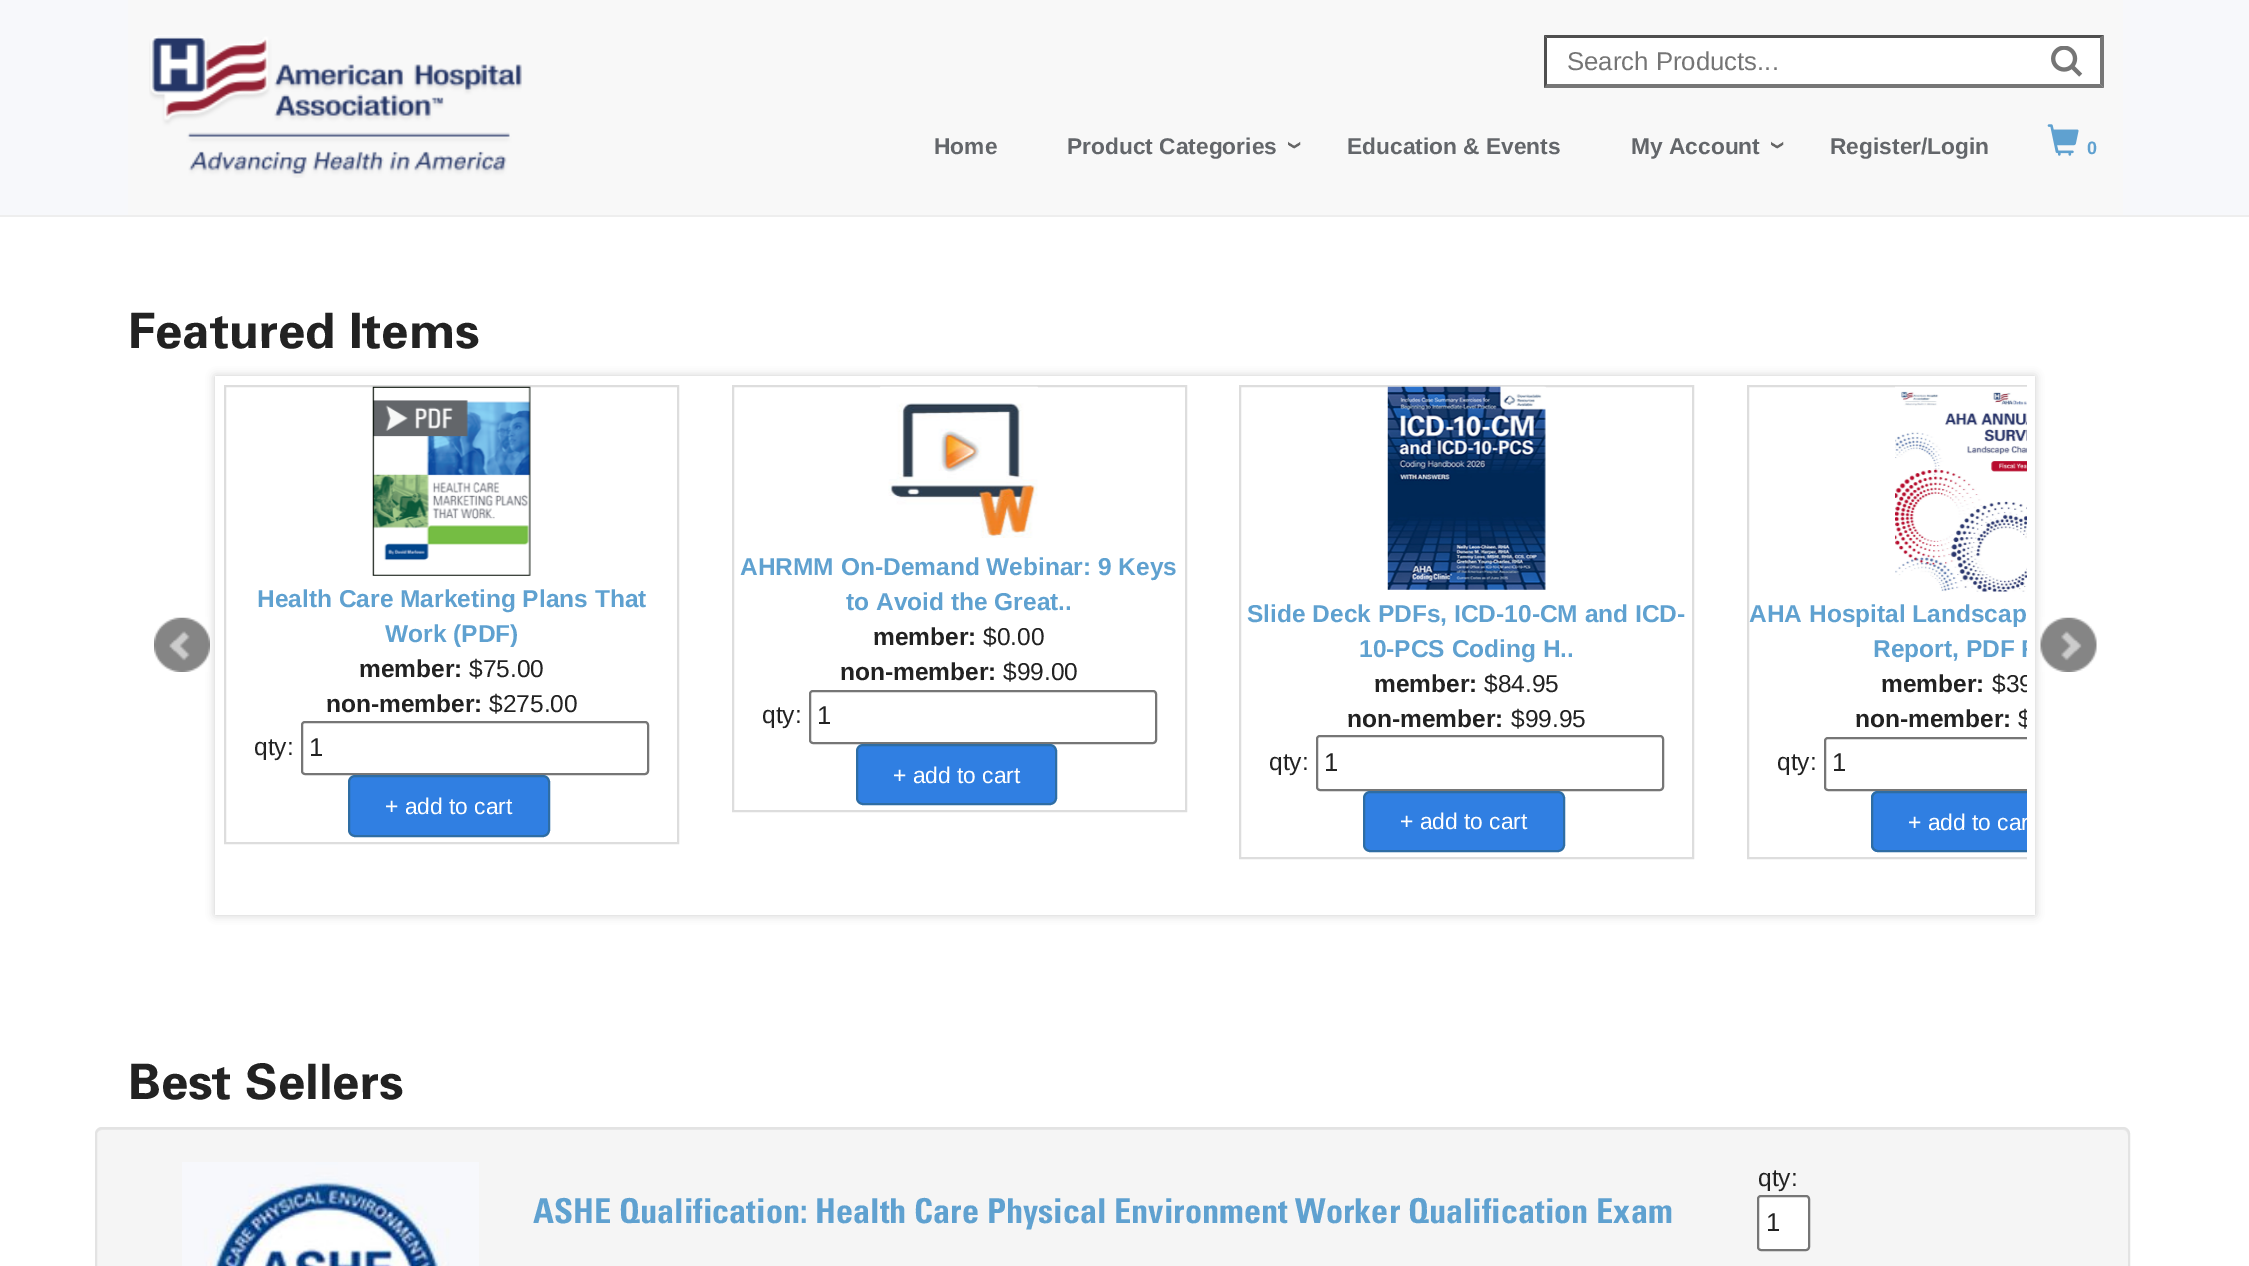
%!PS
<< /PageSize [2249 1266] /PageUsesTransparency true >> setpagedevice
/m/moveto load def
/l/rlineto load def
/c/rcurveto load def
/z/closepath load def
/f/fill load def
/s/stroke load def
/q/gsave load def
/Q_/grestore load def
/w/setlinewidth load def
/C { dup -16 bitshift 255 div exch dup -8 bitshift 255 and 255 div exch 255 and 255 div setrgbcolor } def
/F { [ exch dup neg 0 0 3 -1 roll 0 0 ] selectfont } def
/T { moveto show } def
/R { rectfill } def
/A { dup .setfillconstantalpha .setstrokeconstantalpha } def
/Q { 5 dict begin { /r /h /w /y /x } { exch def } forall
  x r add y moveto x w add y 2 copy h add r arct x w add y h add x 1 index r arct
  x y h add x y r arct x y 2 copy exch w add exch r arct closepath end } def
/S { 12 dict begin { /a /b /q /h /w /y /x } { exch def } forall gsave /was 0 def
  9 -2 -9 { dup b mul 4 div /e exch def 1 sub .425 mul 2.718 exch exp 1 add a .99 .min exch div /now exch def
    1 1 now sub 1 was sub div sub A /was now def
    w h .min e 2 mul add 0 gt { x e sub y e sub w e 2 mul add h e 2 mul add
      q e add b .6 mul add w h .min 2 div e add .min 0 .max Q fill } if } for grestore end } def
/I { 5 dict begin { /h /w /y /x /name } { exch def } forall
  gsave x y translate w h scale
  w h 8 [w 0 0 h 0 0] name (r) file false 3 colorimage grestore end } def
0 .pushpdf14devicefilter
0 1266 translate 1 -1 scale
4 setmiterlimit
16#FFFFFF C
0 0 2249 1266 R
16#EEEEEE C
0 215 2249 2 R
16#F7F8FB C
0 0 2249 215 R
16#F8F8F8 C
128 0 1995 215 R
(1.rgb) 149 35 373 143 I
16#FFFFFF C
1544 35 560 53 R
16#4F4F4F C
1544 35 m 560 0 l -4 3 l -553 0 l z f
16#767676 C
2104 35 m 0 53 l -4 -4 l 0 -46 l z f
2104 88 m -560 0 l 3 -4 l 553 0 l z f
16#4F4F4F C
1544 88 m 0 -53 l 3 3 l 0 46 l z f
/LiberationSans-Regular 25.75 F
16#757575 C
(Search Products...) 1567 70 T
(2.rgb) 2051 46 32 31 I
/LiberationSans-Bold 22.75 F
16#63666A C
(Home) 934 154 T
(Product Categories) 1067 154 T
(3.rgb) 1288 141 13 8 I
(Education & Events) 1347 154 T
(My Account) 1631 154 T
(3.rgb) 1771 141 13 8 I
(Register/Login) 1830 154 T
(4.rgb) 2047 124 32 32 I
/LiberationSans-Bold 18 F
16#5FA1D0 C
(0) 2087 154 T
/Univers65-Bold 49 F
16#222222 C
(Featured Items) 128 348 T
16#CCCCCC C
215 376 1820 539 0 4.5 1 S
16#FFFFFF C
215 376 1820 539 R
16#DDDDDD C
2 w
225 386 453 457 rectstroke
(5.rgb) 372 386 159 190 I
/LiberationSans-Bold 24.5 F
16#5FA1D0 C
(Health Care Marketing Plans That) 257 607 T
(Work \(PDF\)) 385 642 T
16#222222 C
(member:) 359 677 T
/LiberationSans-Regular 24.5 F
($75.00) 469 677 T
/LiberationSans-Bold 24.5 F
(non-member:) 326 712 T
/LiberationSans-Regular 24.5 F
($275.00) 489 712 T
(qty:) 254 755 T
16#767676 C
302 722 346 52 3 Q s
/LiberationSans-Regular 25.75 F
16#222222 C
(1) 309 756 T
16#307FE2 C
349 776 200 60 6 Q q f Q_
16#2E6DA4 C
s
/LiberationSans-Regular 22.75 F
16#FFFFFF C
(+ add to cart) 385 814 T
16#DDDDDD C
733 386 453 425 rectstroke
(6.rgb) 880 386 158 152 I
/LiberationSans-Bold 24.5 F
16#5FA1D0 C
(AHRMM On-Demand Webinar: 9 Keys) 740 575 T
(to Avoid the Great..) 846 610 T
16#222222 C
(member:) 873 645 T
/LiberationSans-Regular 24.5 F
($0.00) 983 645 T
/LiberationSans-Bold 24.5 F
(non-member:) 840 680 T
/LiberationSans-Regular 24.5 F
($99.00) 1003 680 T
(qty:) 762 723 T
16#767676 C
810 691 346 52 3 Q s
/LiberationSans-Regular 25.75 F
16#222222 C
(1) 817 724 T
16#307FE2 C
857 745 199 59 6 Q q f Q_
16#2E6DA4 C
s
/LiberationSans-Regular 22.75 F
16#FFFFFF C
(+ add to cart) 893 783 T
16#DDDDDD C
1240 386 453 472 rectstroke
(7.rgb) 1387 386 159 204 I
/LiberationSans-Bold 24.5 F
16#5FA1D0 C
(Slide Deck PDFs, ICD-10-CM and ICD-) 1247 622 T
(10-PCS Coding H..) 1359 657 T
16#222222 C
(member:) 1374 692 T
/LiberationSans-Regular 24.5 F
($84.95) 1484 692 T
/LiberationSans-Bold 24.5 F
(non-member:) 1347 727 T
/LiberationSans-Regular 24.5 F
($99.95) 1511 727 T
(qty:) 1269 770 T
16#767676 C
1317 736 346 54 3 Q s
/LiberationSans-Regular 25.75 F
16#222222 C
(1) 1324 771 T
16#307FE2 C
1364 792 200 59 6 Q q f Q_
16#2E6DA4 C
s
/LiberationSans-Regular 22.75 F
16#FFFFFF C
(+ add to cart) 1400 829 T
q
224 385 1803 522 rectclip
16#DDDDDD C
1748 386 453 472 rectstroke
Q_
(8.rgb) 1895 386 132 206 I
/LiberationSans-Bold 24.5 F
16#5FA1D0 C
(AHA Hospital Landscap) 1749 622 T
q
224 385 1803 522 rectclip
(Report, PDF F) 1873 657 T
Q_
16#222222 C
(member:) 1881 692 T
q
224 385 1803 522 rectclip
/LiberationSans-Regular 24.5 F
($39) 1992 692 T
Q_
(non-member:) 1855 727 T
q
224 385 1803 522 rectclip
/LiberationSans-Regular 24.5 F
($) 2018 727 T
Q_
/LiberationSans-Regular 24.5 F
(qty:) 1777 770 T
q
224 385 1803 522 rectclip
16#767676 C
1825 738 346 52 3 Q s
Q_
/LiberationSans-Regular 25.75 F
(1) 1832 771 T
16#307FE2 C
1878 791 m 149 0 l 0 61 l -149 0 l -4 0 -7 -3 -7 -7 c 0 -47 l 0 -4 3 -7 7 -7 c z f
q
224 385 1803 522 rectclip
16#2E6DA4 C
1872 792 199 59 6 Q s
/LiberationSans-Regular 22.75 F
16#FFFFFF C
(+ add to car) 1908 830 T
Q_
(9.rgb) 154 617 56 55 I
(10.rgb) 2040 617 57 55 I
/Univers65-Bold 49 F
16#222222 C
(Best Sellers) 128 1099 T
16#F5F5F5 C
95 1127 2035 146 7 Q f
16#E9E9E9 C
102 1130 m 2021 0 l 3 0 5 3 5 6 c 0 -2 l 0 -3 -2 -5 -5 -5 c -2022 0 l -3 0 -5 2 -5 5 c 0 2 l 0 -3 3 -6 6 -6 c z f
16#E3E3E3 C
96 1128 2033 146 6 Q s
(11.rgb) 182 1162 297 104 I
/Univers-Bold 34.3 F
16#5FA1D0 C
(ASHE Qualification: Health Care Physical Environment Worker Qualification Exam) 533 1223 T
/LiberationSans-Regular 24.5 F
16#222222 C
(qty:) 1758 1186 T
16#FFFFFF C
1758 1196 51 54 3 Q q f Q_
16#767676 C
s
/LiberationSans-Regular 25.75 F
16#222222 C
(1) 1766 1231 T
.poppdf14devicefilter showpage
